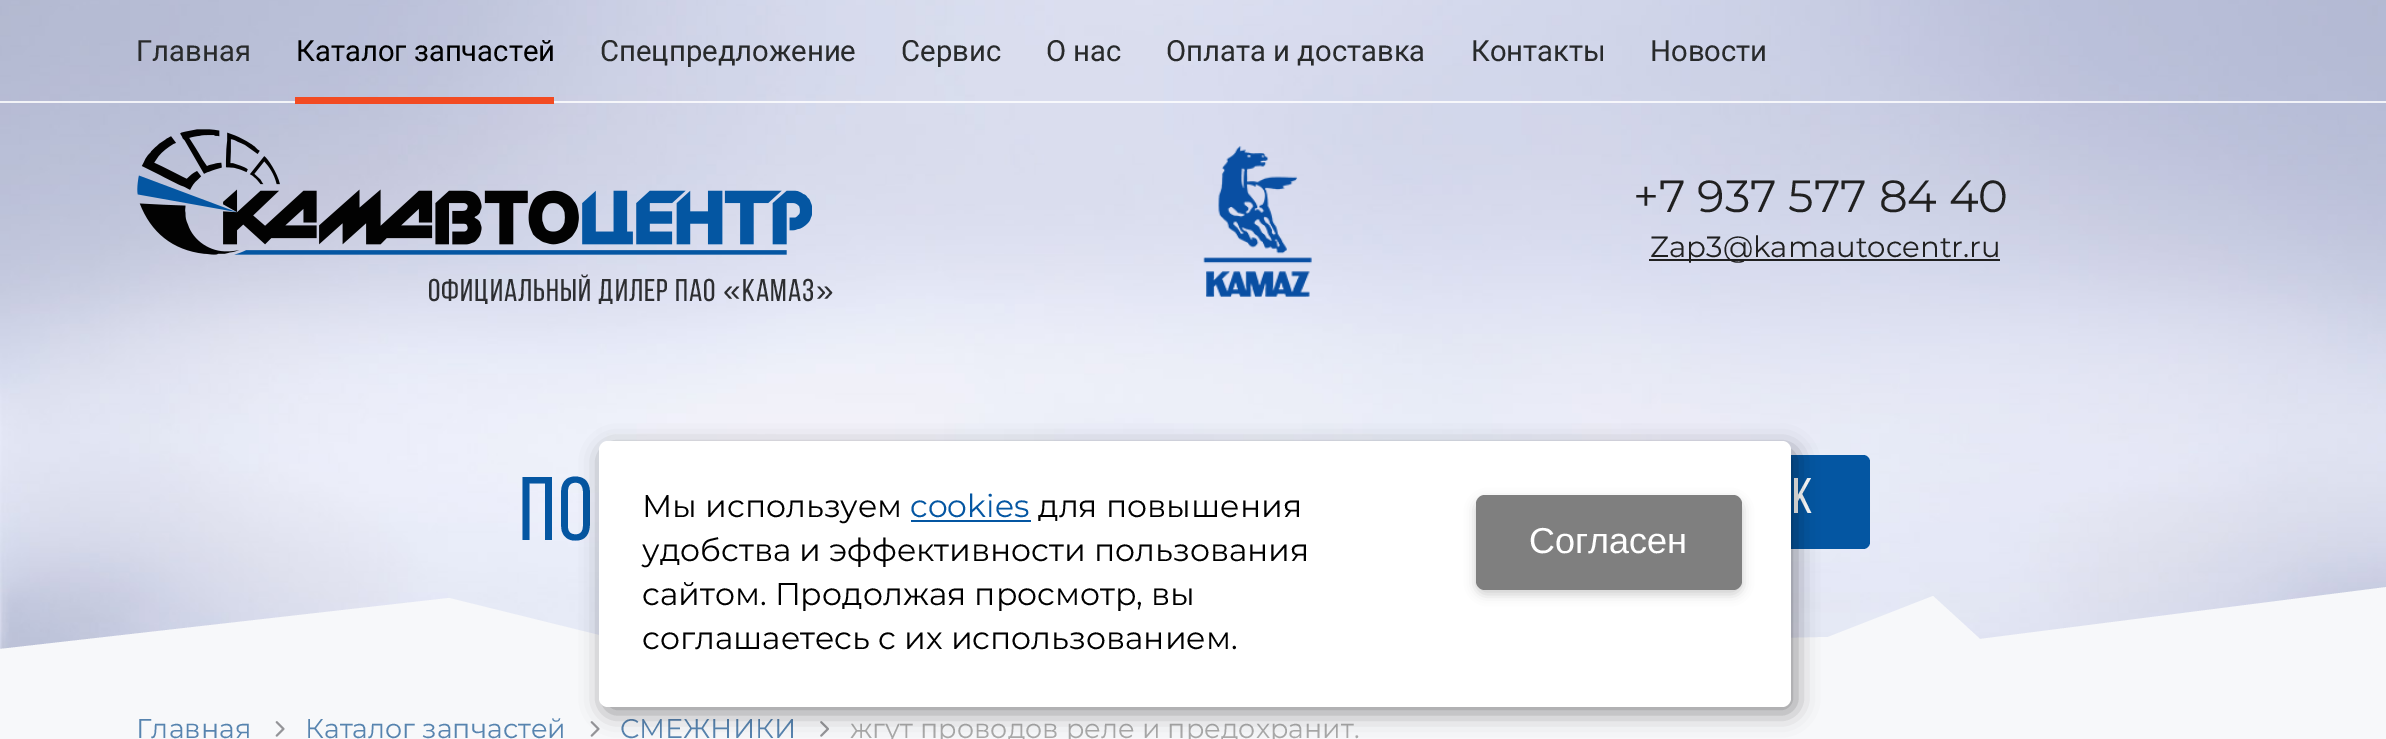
%!PS
<< /PageSize [2386 739] /PageUsesTransparency true >> setpagedevice
/m/moveto load def
/l/rlineto load def
/z/closepath load def
/f/fill load def
/C { dup -16 bitshift 255 div exch dup -8 bitshift 255 and 255 div exch 255 and 255 div setrgbcolor } def
/F { [ exch dup neg 0 0 3 -1 roll 0 0 ] selectfont } def
/T { moveto show } def
/R { rectfill } def
/A { dup .setfillconstantalpha .setstrokeconstantalpha } def
/Q { 5 dict begin { /r /h /w /y /x } { exch def } forall
  x r add y moveto x w add y 2 copy h add r arct x w add y h add x 1 index r arct
  x y h add x y r arct x y 2 copy exch w add exch r arct closepath end } def
/S { 12 dict begin { /a /b /q /h /w /y /x } { exch def } forall gsave /was 0 def
  9 -2 -9 { dup b mul 4 div /e exch def 1 sub .425 mul 2.718 exch exp 1 add a .99 .min exch div /now exch def
    1 1 now sub 1 was sub div sub A /was now def
    w h .min e 2 mul add 0 gt { x e sub y e sub w e 2 mul add h e 2 mul add
      q e add b .6 mul add w h .min 2 div e add .min 0 .max Q fill } if } for grestore end } def
/I { 5 dict begin { /h /w /y /x /name } { exch def } forall
  gsave x y translate w h scale
  w h 8 [w 0 0 h 0 0] name (r) file false 3 colorimage grestore end } def
0 .pushpdf14devicefilter
0 739 translate 1 -1 scale
4 setmiterlimit
16#F7F8FA C
0 0 2386 739 R
(3.rgb) 0 0 2386 649 I
0.82 A
16#FFFFFF C
0 101 2386 2 R
/Roboto-Regular 29.25 F
1 A
16#282A2B C
(Главная) 136 61 T
16#000000 C
(Каталог запчастей) 296 61 T
16#F24B23 C
295 97 259 7 R
16#282A2B C
(Спецпредложение) 600 61 T
(Сервис) 901 61 T
(О нас) 1046 61 T
(Оплата и доставка) 1166 61 T
(Контакты) 1471 61 T
(Новости) 1650 61 T
(1.rgb) 1203 146 109 151 I
/Montserrat-Regular 45 F
16#202020 C
(+7 937 577 84 40) 1633 212 T
1649 259 351 2 R
/Montserrat-Regular 29.25 F
(Zap3@kamautocentr.ru) 1650 257 T
(2.rgb) 137 129 675 126 I
/BebasNeue-Regular 31.5 F
16#2D2E31 C
428 301 m 1.1 0 (ОФИЦИАЛЬНЫЙ ДИЛЕР ПАО) ashow
/LiberationSans-Regular 31.5 F
723 301 m 1.1 0 («) ashow
/BebasNeue-Regular 31.5 F
742 301 m 1.1 0 (КАМАЗ) ashow
/LiberationSans-Regular 31.5 F
816 301 m 1.1 0 (») ashow
/BebasNeue-Regular 90 F
16#0456A2 C
519 540 m 2 0 (ПО) ashow
1645 455 225 94 7 Q f
/BebasNeue-Regular 50 F
16#FFFFFF C
1792 513 m 4 0 (К) ashow
16#F7F8FA C
0 649 m 449 -51 l 267 66 l 1112 -27 l 105 -41 l 47 43 l 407 -52 l 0 79 l -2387 5 l z eofill
/Montserrat-Regular 27 F
16#5784AF C
(Главная) 136 738 T
(4.rgb) 275 721 10 16 I
(Каталог запчастей) 305 738 T
(4.rgb) 590 721 10 16 I
(СМЕЖНИКИ) 620 738 T
(5.rgb) 820 721 9 16 I
16#AAAAAA C
(жгут проводов реле и предохранит.) 850 738 T
16#000000 C
603 448 1193 265 9 11 .4 S
16#FFFFFF C
599 441 1192 266 9 Q f
/Montserrat-Regular 31.5 F
16#000000 C
(Мы используем) 642 517 T
16#0456A2 C
(cookies) 910 517 T
911 520 120 2 R
16#000000 C
(для повышения) 1038 517 T
(удобства и эффективности пользования) 642 561 T
(сайтом. Продолжая просмотр, вы) 642 605 T
(соглашаетесь с их использованием.) 642 649 T
1476 500 266 94 9 5.5 .2 S
16#7F7F7F C
1476 495 266 95 9 Q f
/LiberationSans-Regular 36 F
16#FFFFFF C
(Согласен) 1529 553 T
.poppdf14devicefilter showpage
